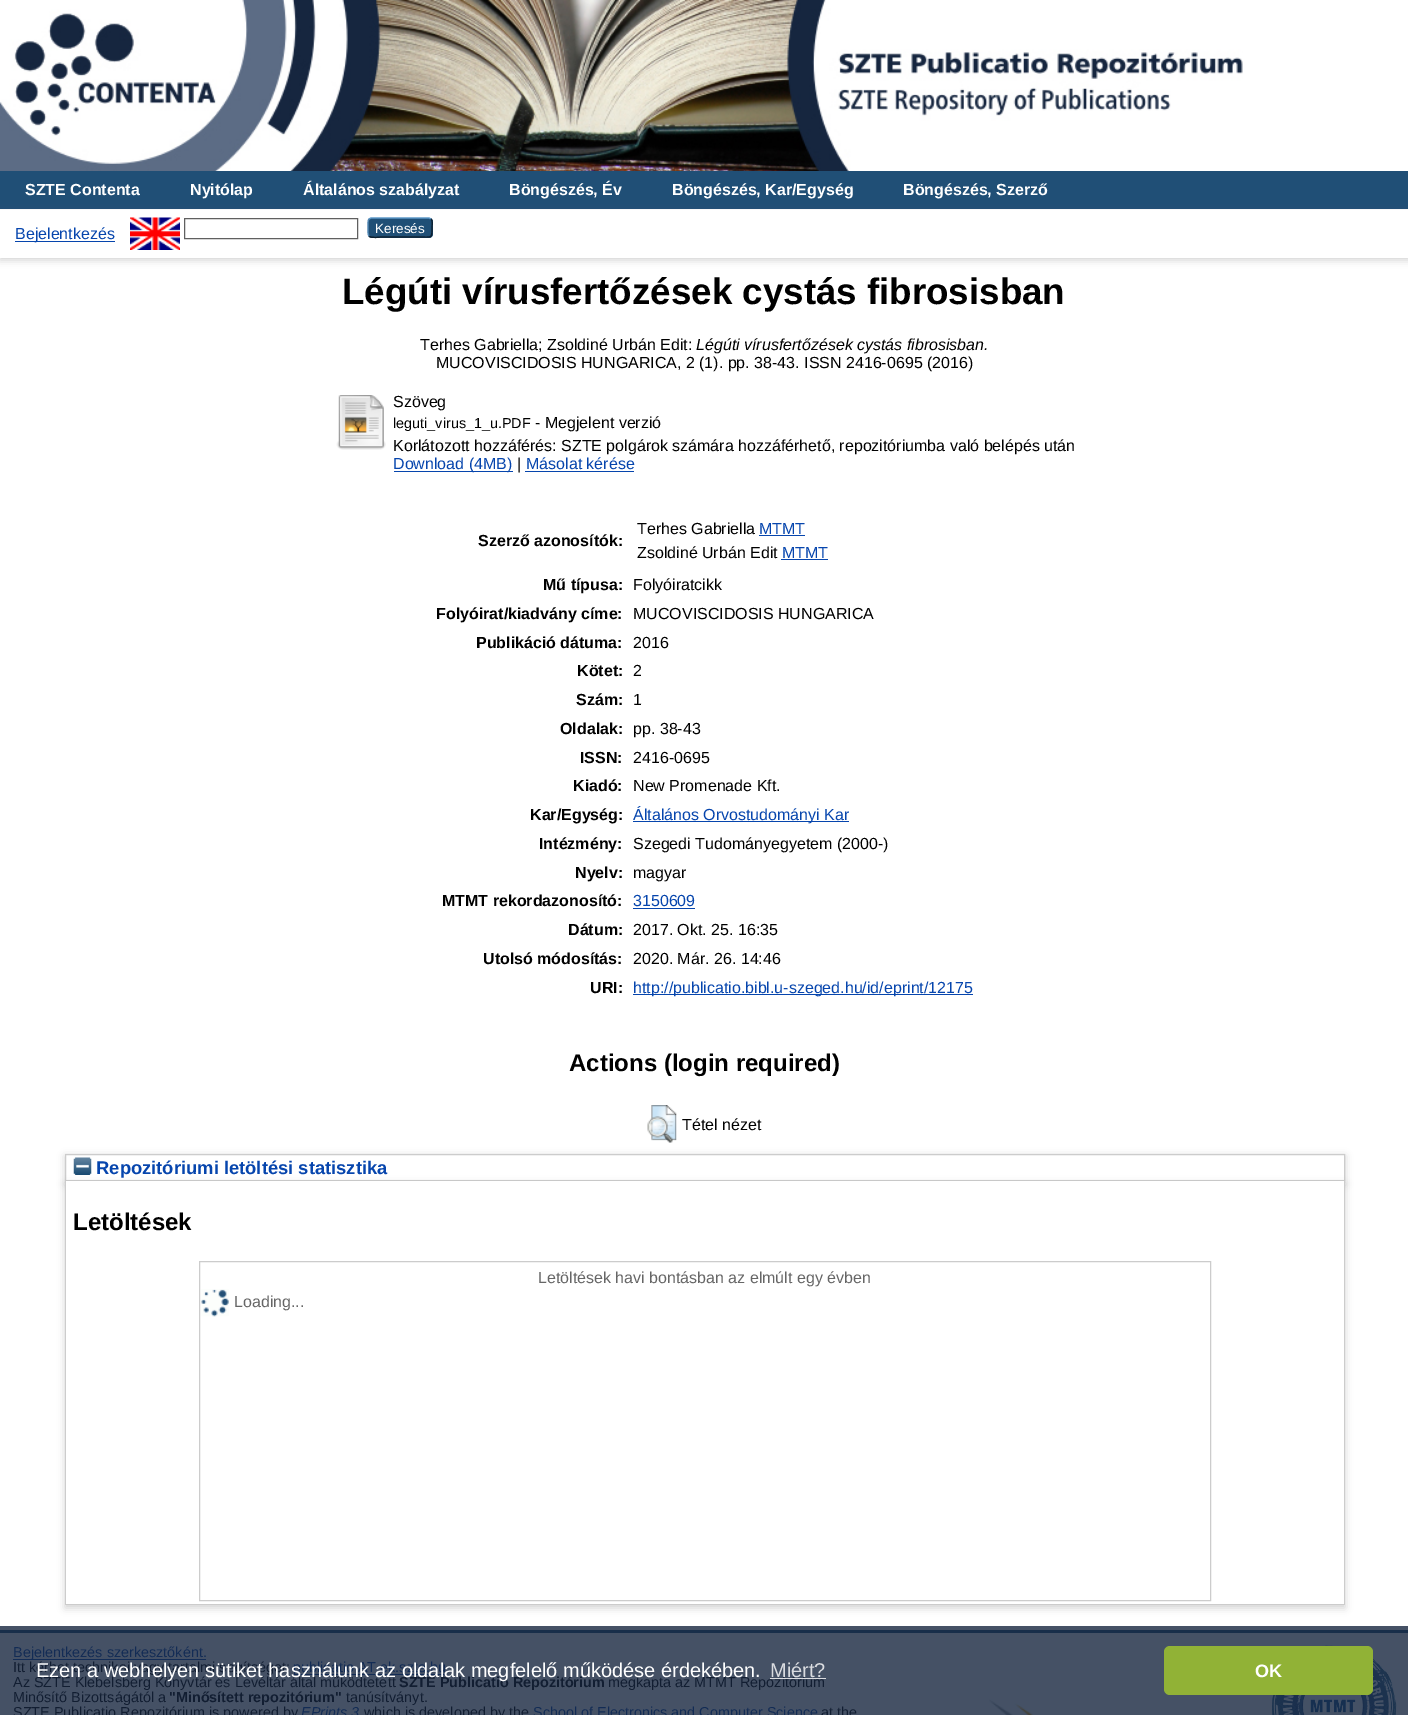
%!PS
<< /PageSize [1408 1715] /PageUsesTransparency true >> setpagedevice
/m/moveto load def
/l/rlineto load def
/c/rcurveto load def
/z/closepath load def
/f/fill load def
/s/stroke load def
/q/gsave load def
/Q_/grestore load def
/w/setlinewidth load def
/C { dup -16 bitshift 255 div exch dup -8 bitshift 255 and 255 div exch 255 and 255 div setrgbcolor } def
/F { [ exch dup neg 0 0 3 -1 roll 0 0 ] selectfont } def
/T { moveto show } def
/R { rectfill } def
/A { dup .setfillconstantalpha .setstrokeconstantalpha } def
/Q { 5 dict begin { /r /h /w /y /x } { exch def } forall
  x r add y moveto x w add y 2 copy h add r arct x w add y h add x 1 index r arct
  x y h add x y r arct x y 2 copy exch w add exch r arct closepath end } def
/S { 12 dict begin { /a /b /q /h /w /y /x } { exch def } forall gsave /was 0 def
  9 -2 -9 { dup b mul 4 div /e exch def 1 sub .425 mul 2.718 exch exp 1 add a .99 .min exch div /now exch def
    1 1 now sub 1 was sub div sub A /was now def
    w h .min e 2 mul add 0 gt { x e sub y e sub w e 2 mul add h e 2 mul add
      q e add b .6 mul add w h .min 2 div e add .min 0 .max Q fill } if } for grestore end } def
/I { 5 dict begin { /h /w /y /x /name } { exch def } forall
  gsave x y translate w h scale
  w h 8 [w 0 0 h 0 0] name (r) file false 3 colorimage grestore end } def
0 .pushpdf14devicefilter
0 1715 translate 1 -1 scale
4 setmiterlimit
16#FFFFFF C
0 0 1408 1715 R
16#455165 C
0 1626 1408 89 R
(1.rgb) 0 0 1243 171 I
16#204F76 C
0 171 1408 38 R
/LiberationSans-Bold 16 F
16#FFFFFF C
(SZTE Contenta) 25 195 T
(Nyitólap) 190 195 T
(Általános szabályzat) 303 195 T
(Böngészés, Év) 509 195 T
(Böngészés, Kar/Egység) 672 195 T
(Böngészés, Szerző) 903 195 T
16#646464 C
0 213 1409 47 0 4 .3 S
16#FFFFFF C
0 210 1408 48 R
16#0645AD C
15 241 100 1 R
/LiberationSans-Regular 16 F
(Bejelentkezés) 15 239 T
(2.rgb) 130 217 50 33 I
16#606060 C
184.5 218.5 173 20 rectstroke
16#1F4F76 C
368 218 65 20 4 Q f
16#5B97C7 C
1.2 w
369 219 m 2 -1 l 58 0 l 2 1 l s
16#0D2131 C
431 219 m 2 2 1 6 1 8.5 c 0 11.5 0 9.5 -13 9.5 c -38 0 l -1 0 -9.5 1.5 -12 -1 c s
16#5287B3 C
369 236 m -1.5 -2 -1 -6.5 -1 -8.5 c 0 -2 -.5 -6.5 1 -8.5 c s
/LiberationSans-Regular 13.5 F
16#FFFFFF C
(Keresés) 375 233 T
/LiberationSans-Bold 36.75 F
16#000000 C
(Légúti vírusfertőzések cystás fibrosisban) 342 304 T
/LiberationSans-Regular 16 F
(Terhes Gabriella; Zsoldiné Urbán Edit:) 420 350 T
/LiberationSans-Italic 16 F
(Légúti vírusfertőzések cystás fibrosisban.) 696 350 T
/LiberationSans-Regular 16 F
(MUCOVISCIDOSIS HUNGARICA, 2 \(1\). pp. 38-43. ISSN 2416-0695 \(2016\)) 436 368 T
(3.rgb) 336 395 50 55 I
(Szöveg) 393 407 T
/LiberationSans-Regular 14.4 F
(leguti_virus_1_u.PDF) 393 428 T
/LiberationSans-Regular 16 F
(- Megjelent verzió) 535 428 T
(Korlátozott hozzáférés: SZTE polgárok számára hozzáférhető, repozitóriumba való belépés után) 393 451 T
16#0645AD C
394 471 119 1 R
(Download \(4MB\)) 393 469 T
16#000000 C
(|) 517 469 T
16#0645AD C
(Másolat kérése) 526 469 T
525 471 109 1 R
/LiberationSans-Bold 16 F
16#000000 C
(Szerző azonosítók:) 478 546 T
/LiberationSans-Regular 16 F
(Terhes Gabriella) 637 534 T
16#0645AD C
(MTMT) 759 534 T
759 535 46 1 R
16#000000 C
(Zsoldiné Urbán Edit) 637 558 T
16#0645AD C
(MTMT) 782 558 T
781 559 47 1 R
/LiberationSans-Bold 16 F
16#000000 C
(Mű típusa:) 543 590 T
/LiberationSans-Regular 16 F
(Folyóiratcikk) 633 590 T
/LiberationSans-Bold 16 F
(Folyóirat/kiadvány címe:) 436 619 T
/LiberationSans-Regular 16 F
(MUCOVISCIDOSIS HUNGARICA) 633 619 T
/LiberationSans-Bold 16 F
(Publikáció dátuma:) 476 648 T
/LiberationSans-Regular 16 F
(2016) 633 648 T
/LiberationSans-Bold 16 F
(Kötet:) 577 676 T
/LiberationSans-Regular 16 F
(2) 633 676 T
/LiberationSans-Bold 16 F
(Szám:) 576 705 T
/LiberationSans-Regular 16 F
(1) 633 705 T
/LiberationSans-Bold 16 F
(Oldalak:) 560 734 T
/LiberationSans-Regular 16 F
(pp. 38-43) 633 734 T
/LiberationSans-Bold 16 F
(ISSN:) 580 763 T
/LiberationSans-Regular 16 F
(2416-0695) 633 763 T
/LiberationSans-Bold 16 F
(Kiadó:) 573 791 T
/LiberationSans-Regular 16 F
(New Promenade Kft.) 633 791 T
/LiberationSans-Bold 16 F
(Kar/Egység:) 530 820 T
16#0645AD C
633 821 216 1 R
/LiberationSans-Regular 16 F
(Általános Orvostudományi Kar) 633 820 T
/LiberationSans-Bold 16 F
16#000000 C
(Intézmény:) 539 849 T
/LiberationSans-Regular 16 F
(Szegedi Tudományegyetem \(2000-\)) 633 849 T
/LiberationSans-Bold 16 F
(Nyelv:) 575 878 T
/LiberationSans-Regular 16 F
(magyar) 633 878 T
/LiberationSans-Bold 16 F
(MTMT rekordazonosító:) 442 906 T
/LiberationSans-Regular 16 F
16#0645AD C
(3150609) 633 906 T
633 908 62 1 R
/LiberationSans-Bold 16 F
16#000000 C
(Dátum:) 568 935 T
/LiberationSans-Regular 16 F
(2017. Okt. 25. 16:35) 633 935 T
/LiberationSans-Bold 16 F
(Utolsó módosítás:) 483 964 T
/LiberationSans-Regular 16 F
(2020. Már. 26. 14:46) 633 964 T
/LiberationSans-Bold 16 F
(URI:) 590 993 T
16#0645AD C
633 994 340 1 R
/LiberationSans-Regular 16 F
(http://publicatio.bibl.u-szeged.hu/id/eprint/12175) 633 993 T
/LiberationSans-Bold 24 F
16#000000 C
(Actions \(login required\)) 569 1071 T
(4.rgb) 647 1105 30 38 I
/LiberationSans-Regular 16 F
(Tétel nézet) 682 1130 T
q
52 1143 m 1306 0 l 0 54 l -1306 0 l z 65 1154 m 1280 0 l 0 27 l -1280 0 l z eoclip newpath
16#646464 C
65 1156 1280 28 0 4 .3 S
Q_
16#CCCCCC C
1 w
65.5 1154.5 1279 26 rectstroke
16#646464 C
65 1184 1280 424 0 4 .3 S
(5.rgb) 73 1157 19 18 I
/LiberationSans-Bold 18.4 F
16#0645AD C
(Repozitóriumi letöltési statisztika) 96 1174 T
16#FFFFFF C
66 1181 1278 423 R
16#CCCCCC C
1344 1181 1 424 R
65 1604 1280 1 R
65 1181 1 424 R
/LiberationSans-Bold 24 F
16#000000 C
(Letöltések) 73 1230 T
16#CCCCCC C
199.5 1261.5 1011 339 rectstroke
/LiberationSans-Regular 16 F
16#666666 C
(Letöltések havi bontásban az elmúlt egy évben) 538 1283 T
(6.rgb) 201 1289 28 28 I
(Loading...) 234 1307 T
16#182E4A C
0 1630 1408 3 R
16#132C55 C
13 1659 193 1 R
/LiberationSans-Regular 14.4 F
(Bejelentkezés szerkesztőként.) 13 1657 T
16#121E32 C
(Itt kérhet technikai vagy tartalmi segítséget:) 13 1672 T
16#132C55 C
294 1674 152 1 R
(publicatio AT ek.szte.hu) 293 1672 T
16#121E32 C
(Az SZTE Klebelsberg Könyvtár és Levéltár által működtetett) 13 1687 T
/LiberationSans-Bold 14.4 F
(SZTE Publicatio Repozitórium) 399 1687 T
/LiberationSans-Regular 14.4 F
(megkapta az MTMT Repozitórium) 608 1687 T
(Minősítő Bizottságától a) 13 1702 T
/LiberationSans-Bold 14.4 F
("Minősített repozitórium") 169 1702 T
/LiberationSans-Regular 14.4 F
(tanúsítványt.) 346 1702 T
(SZTE Publicatio Repozitórium is powered by) 13 1717 T
/LiberationSans-Italic 14.4 F
16#132C55 C
(EPrints 3) 301 1717 T
/LiberationSans-Regular 14.4 F
16#121E32 C
(which is developed by the) 364 1717 T
16#132C55 C
(School of Electronics and Computer Science) 533 1717 T
16#121E32 C
(at the) 821 1717 T
(7.rgb) 989 1699 45 16 I
(8.rgb) 1272 1645 125 70 I
/LiberationSans-Regular 20 F
16#FFFFFF C
(Ezen a webhelyen sütiket használunk az oldalak megfelelő működése érdekében.) 36 1677 T
16#DADCE0 C
(Miért?) 770 1677 T
0.8 A
16#FFFFFF C
770 1678 56 1 R
1 A
16#91B236 C
1164 1646 209 49 6 Q f
/LiberationSans-Bold 18 F
16#FFFFFF C
(OK) 1255 1677 T
.poppdf14devicefilter showpage
